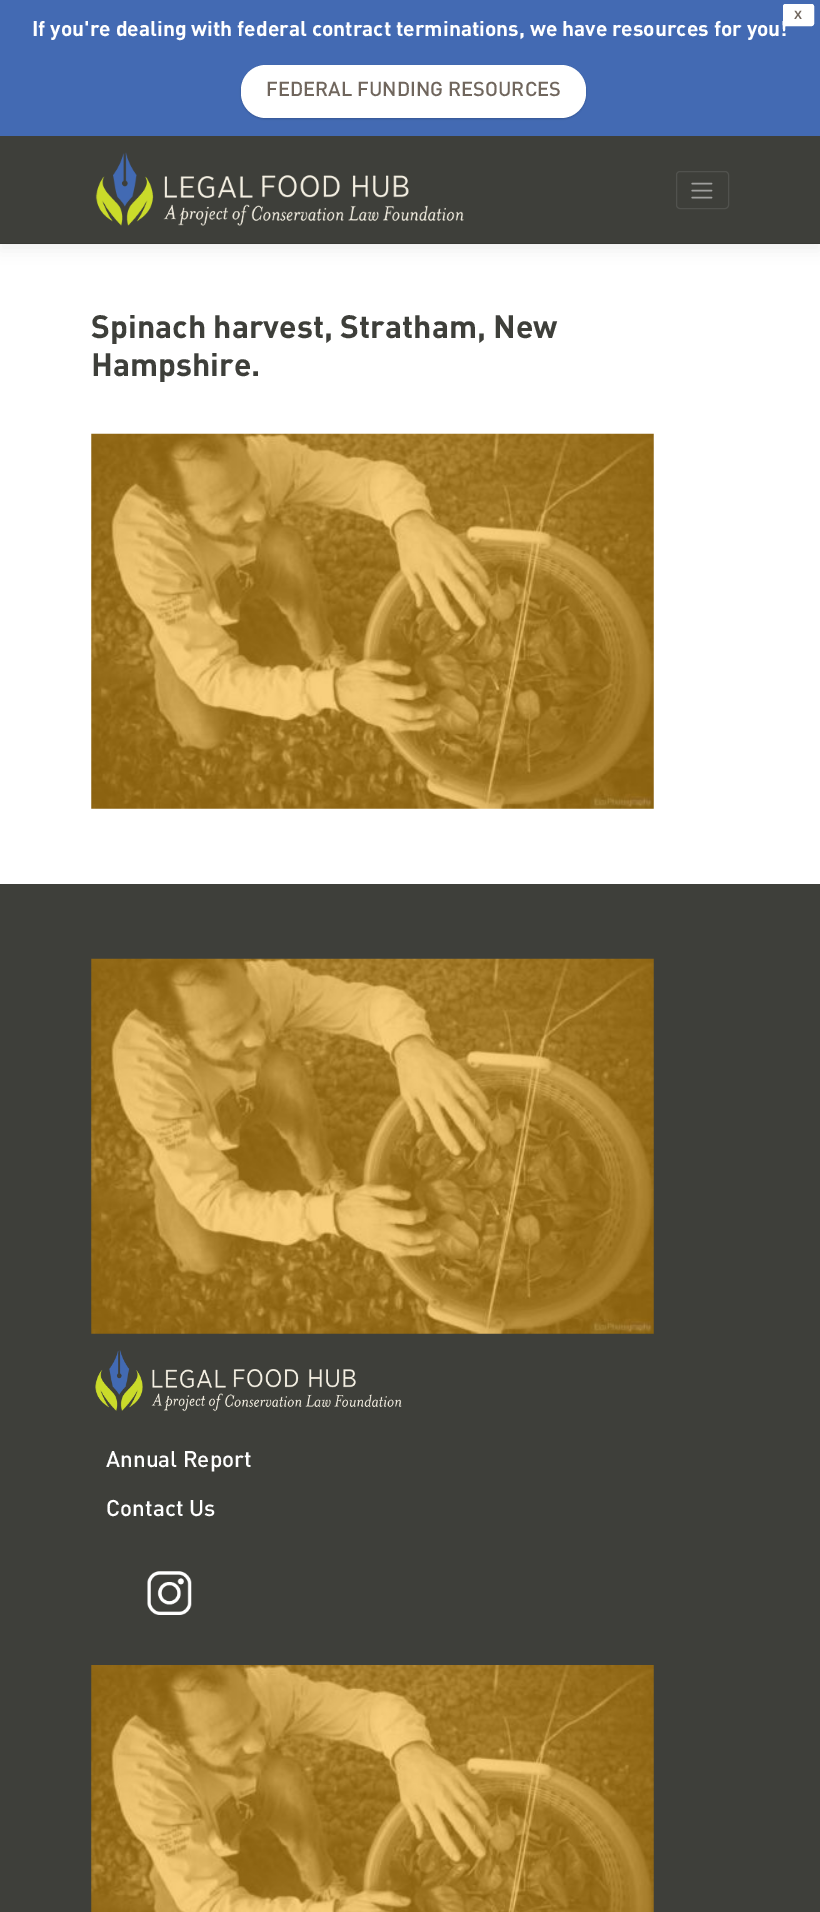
%!PS
<< /PageSize [820 1912] /PageUsesTransparency true >> setpagedevice
/f/fill load def
/s/stroke load def
/q/gsave load def
/Q_/grestore load def
/C { dup -16 bitshift 255 div exch dup -8 bitshift 255 and 255 div exch 255 and 255 div setrgbcolor } def
/F { [ exch dup neg 0 0 3 -1 roll 0 0 ] selectfont } def
/T { moveto show } def
/R { rectfill } def
/A { dup .setfillconstantalpha .setstrokeconstantalpha } def
/Q { 5 dict begin { /r /h /w /y /x } { exch def } forall
  x r add y moveto x w add y 2 copy h add r arct x w add y h add x 1 index r arct
  x y h add x y r arct x y 2 copy exch w add exch r arct closepath end } def
/S { 12 dict begin { /a /b /q /h /w /y /x } { exch def } forall gsave /was 0 def
  9 -2 -9 { dup b mul 4 div /e exch def 1 sub .425 mul 2.718 exch exp 1 add a .99 .min exch div /now exch def
    1 1 now sub 1 was sub div sub A /was now def
    w h .min e 2 mul add 0 gt { x e sub y e sub w e 2 mul add h e 2 mul add
      q e add b .6 mul add w h .min 2 div e add .min 0 .max Q fill } if } for grestore end } def
/I { 5 dict begin { /h /w /y /x /name } { exch def } forall
  gsave x y translate w h scale
  w h 8 [w 0 0 h 0 0] name (r) file false 3 colorimage grestore end } def
0 .pushpdf14devicefilter
0 1912 translate 1 -1 scale
4 setmiterlimit
16#FFFFFF C
0 0 820 1912 R
16#000000 C
0 144 820 107 0 8 .05 S
16#436AB3 C
0 0 820 136 R
16#FFFFFF C
783.5 4.5 30 21 2 Q q f Q_
s
/LiberationSans-Bold 12 F
16#70665D C
(X) 794 19 T
/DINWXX-Bold 21 F
16#FFFFFF C
(If you're dealing with federal contract terminations, we have resources for you!) 32 36 T
16#000000 C
241 66 345 53 25 1 .2 S
16#FFFFFF C
241 65 345 53 25 Q f
/DIN-Medium 20 F
16#70665D C
(FEDERAL FUNDING RESOURCES) 266 96 T
16#3E3F3A C
0 136 820 107 R
16#383934 C
0 243 820 1 R
(1.rgb) 95 152 369 74 I
16#51524E C
676.5 171.5 52 37 3.5 Q s
(2.rgb) 691 182 22 17 I
/DINWXX-Bold 32 F
16#3E3F3A C
(Spinach harvest, Stratham, New) 91 338 T
(Hampshire.) 91 376 T
(3.rgb) 91 433 563 376 I
0 884 820 1028 R
(4.rgb) 91 958 563 376 I
(5.rgb) 95 1350 307 62 I
/DIN-Medium 22.5 F
16#FFFFFF C
(Annual Report) 106 1467 T
(Contact Us) 106 1516 T
(6.rgb) 147 1571 45 44 I
(7.rgb) 91 1665 563 247 I
.poppdf14devicefilter showpage
